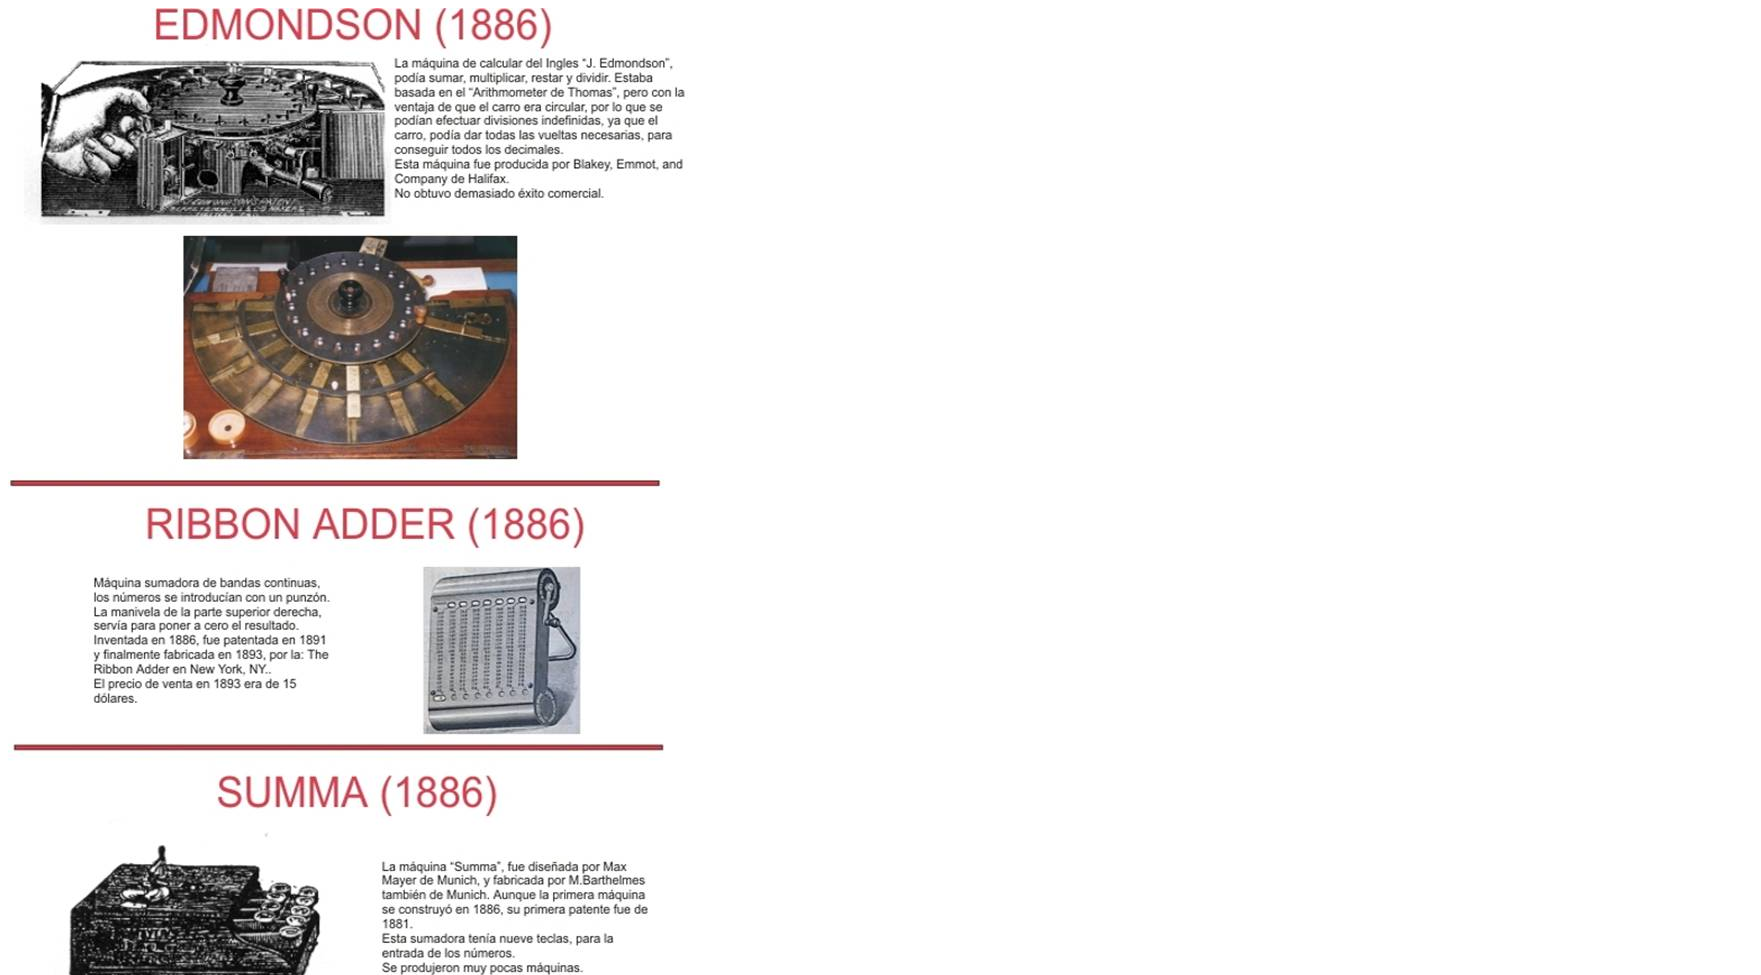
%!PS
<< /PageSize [1761 975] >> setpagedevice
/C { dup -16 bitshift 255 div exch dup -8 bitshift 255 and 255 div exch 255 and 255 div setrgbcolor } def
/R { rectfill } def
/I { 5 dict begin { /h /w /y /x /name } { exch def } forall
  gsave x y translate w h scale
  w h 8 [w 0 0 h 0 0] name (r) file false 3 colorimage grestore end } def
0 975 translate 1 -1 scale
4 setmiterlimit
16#FFFFFF C
0 0 1761 975 R
(1.rgb) 8 8 680 967 I
showpage
